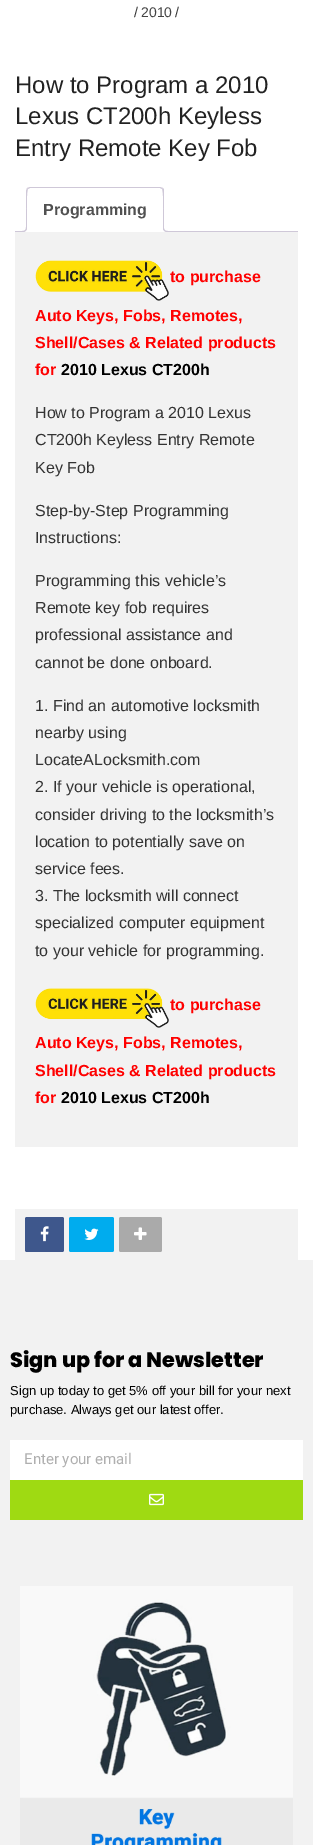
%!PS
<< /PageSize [313 1845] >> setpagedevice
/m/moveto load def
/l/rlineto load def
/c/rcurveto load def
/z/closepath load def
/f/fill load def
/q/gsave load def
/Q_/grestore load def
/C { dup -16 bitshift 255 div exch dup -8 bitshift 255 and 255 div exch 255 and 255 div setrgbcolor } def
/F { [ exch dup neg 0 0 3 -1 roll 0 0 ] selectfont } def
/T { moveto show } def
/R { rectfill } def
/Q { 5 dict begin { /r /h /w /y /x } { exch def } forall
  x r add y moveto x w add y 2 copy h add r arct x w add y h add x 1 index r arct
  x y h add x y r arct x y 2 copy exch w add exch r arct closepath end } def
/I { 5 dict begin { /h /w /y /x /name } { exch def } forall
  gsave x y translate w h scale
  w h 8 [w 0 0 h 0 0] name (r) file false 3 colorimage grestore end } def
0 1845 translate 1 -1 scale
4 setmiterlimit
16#FFFFFF C
0 0 313 1845 R
/LiberationSans-Regular 14 F
16#333333 C
(/) 134 17 T
16#444444 C
(2010) 141 17 T
16#333333 C
(/) 175 17 T
/LiberationSans-Regular 24 F
16#222222 C
(How to Program a 2010) 15 93 T
(Lexus CT200h Keyless) 15 124 T
(Entry Remote Key Fob) 15 156 T
16#CFC8D8 C
15 231 283 1 R
16#FFFFFF C
30 187 m 130 0 l 2 0 4 2 4 4 c 0 41 l -138 0 l 0 -41 l 0 -2 2 -4 4 -4 c z f
16#CFC8D8 C
30 187 m -3 1 l 1 1 l 2 -1 l 130 0 l 2 1 l 1 -1 l -3 -1 l z f
164 232 m 0 -41 l 0 -1 0 -2 -1 -3 c -1 1 l 2 2 1 37 1 42 c z f
16#FFFFFF C
164 232 m -1 -1 l -136 0 l -1 1 l z f
16#CFC8D8 C
26 232 m 1 -1 l 0 -5 -1 -40 1 -42 c -1 -1 l -1 3 l z f
/LiberationSans-Bold 16 F
16#515151 C
(Programming) 43 215 T
q
15 187 283 45 rectclip
16#FFFFFF C
24 232 m 0 2 l 3.5 0 5 -1.5 5 -5 c -2 0 l -.5 1.5 -1.5 2.5 -3 3 c z f
Q_
16#CFC8D8 C
22 227 m 5 0 l 0 3.5 -1.5 5 -5 5 c z 22 227 m 4 0 l 0 3 -1 4 -4 4 c z eofill
q
15 187 283 45 rectclip
16#FFFFFF C
161 229 m 0 3.5 1.5 5 5 5 c 0 -2 l -1.5 -.5 -2.5 -1.5 -3 -3 c z f
Q_
163 227 m 5 0 l 0 5 l -2.5 0 -5 -1 -5 -4 c z 164 227 m 4 0 l 0 4 l -2 0 -4 -.5 -4 -3 c z eofill
16#F2F2F2 C
15 232 283 915 R
(1.rgb) 35 260 134 41 I
16#FF0000 C
(to purchase) 170 282 T
(Auto Keys, Fobs, Remotes,) 35 321 T
(Shell/Cases & Related products) 35 348 T
(for) 35 375 T
16#000000 C
(2010 Lexus CT200h) 61 375 T
/LiberationSans-Regular 16 F
16#333333 C
(How to Program a 2010 Lexus) 35 418 T
(CT200h Keyless Entry Remote) 35 445 T
(Key Fob) 35 473 T
(Step-by-Step Programming) 35 516 T
(Instructions:) 35 543 T
(Programming this vehicle’s) 35 586 T
(Remote key fob requires) 35 613 T
(professional assistance and) 35 640 T
(cannot be done onboard.) 35 668 T
(1. Find an automotive locksmith) 35 711 T
(nearby using) 35 738 T
(LocateALocksmith.com) 35 765 T
(2. If your vehicle is operational,) 35 792 T
(consider driving to the locksmith’s) 35 820 T
(location to potentially save on) 35 847 T
(service fees.) 35 874 T
(3. The locksmith will connect) 35 901 T
(specialized computer equipment) 35 928 T
(to your vehicle for programming.) 35 956 T
(2.rgb) 35 988 134 40 I
/LiberationSans-Bold 16 F
16#FF0000 C
(to purchase) 170 1010 T
(Auto Keys, Fobs, Remotes,) 35 1048 T
(Shell/Cases & Related products) 35 1076 T
(for) 35 1103 T
16#000000 C
(2010 Lexus CT200h) 61 1103 T
16#F2F2F2 C
15 1209 283 51 R
16#3E578C C
25 1217 39 35 2 Q f
(3.rgb) 40 1226 9 16 I
16#00ACEE C
69 1217 45 35 2 Q f
(4.rgb) 84 1228 15 12 I
16#AAAAAA C
119 1217 43 35 2 Q f
(5.rgb) 134 1227 13 13 I
16#F2F2F2 C
0 1260 313 585 R
/Poppins-ExtraBold 20.75 F
16#000000 C
(Sign up for a Newsletter) 10 1367 T
/LiberationSans-Regular 13 F
(Sign up today to get 5% off your bill for your next) 10 1395 T
(purchase. Always get our latest offer.) 10 1414 T
16#FFFFFF C
10 1440 293 40 R
/Roboto-Regular 15 F
16#AFAFAF C
(Enter your email) 24 1464 T
16#9FDA12 C
10 1480 293 40 R
(6.rgb) 149 1493 15 13 I
(7.rgb) 20 1586 273 259 I
showpage
